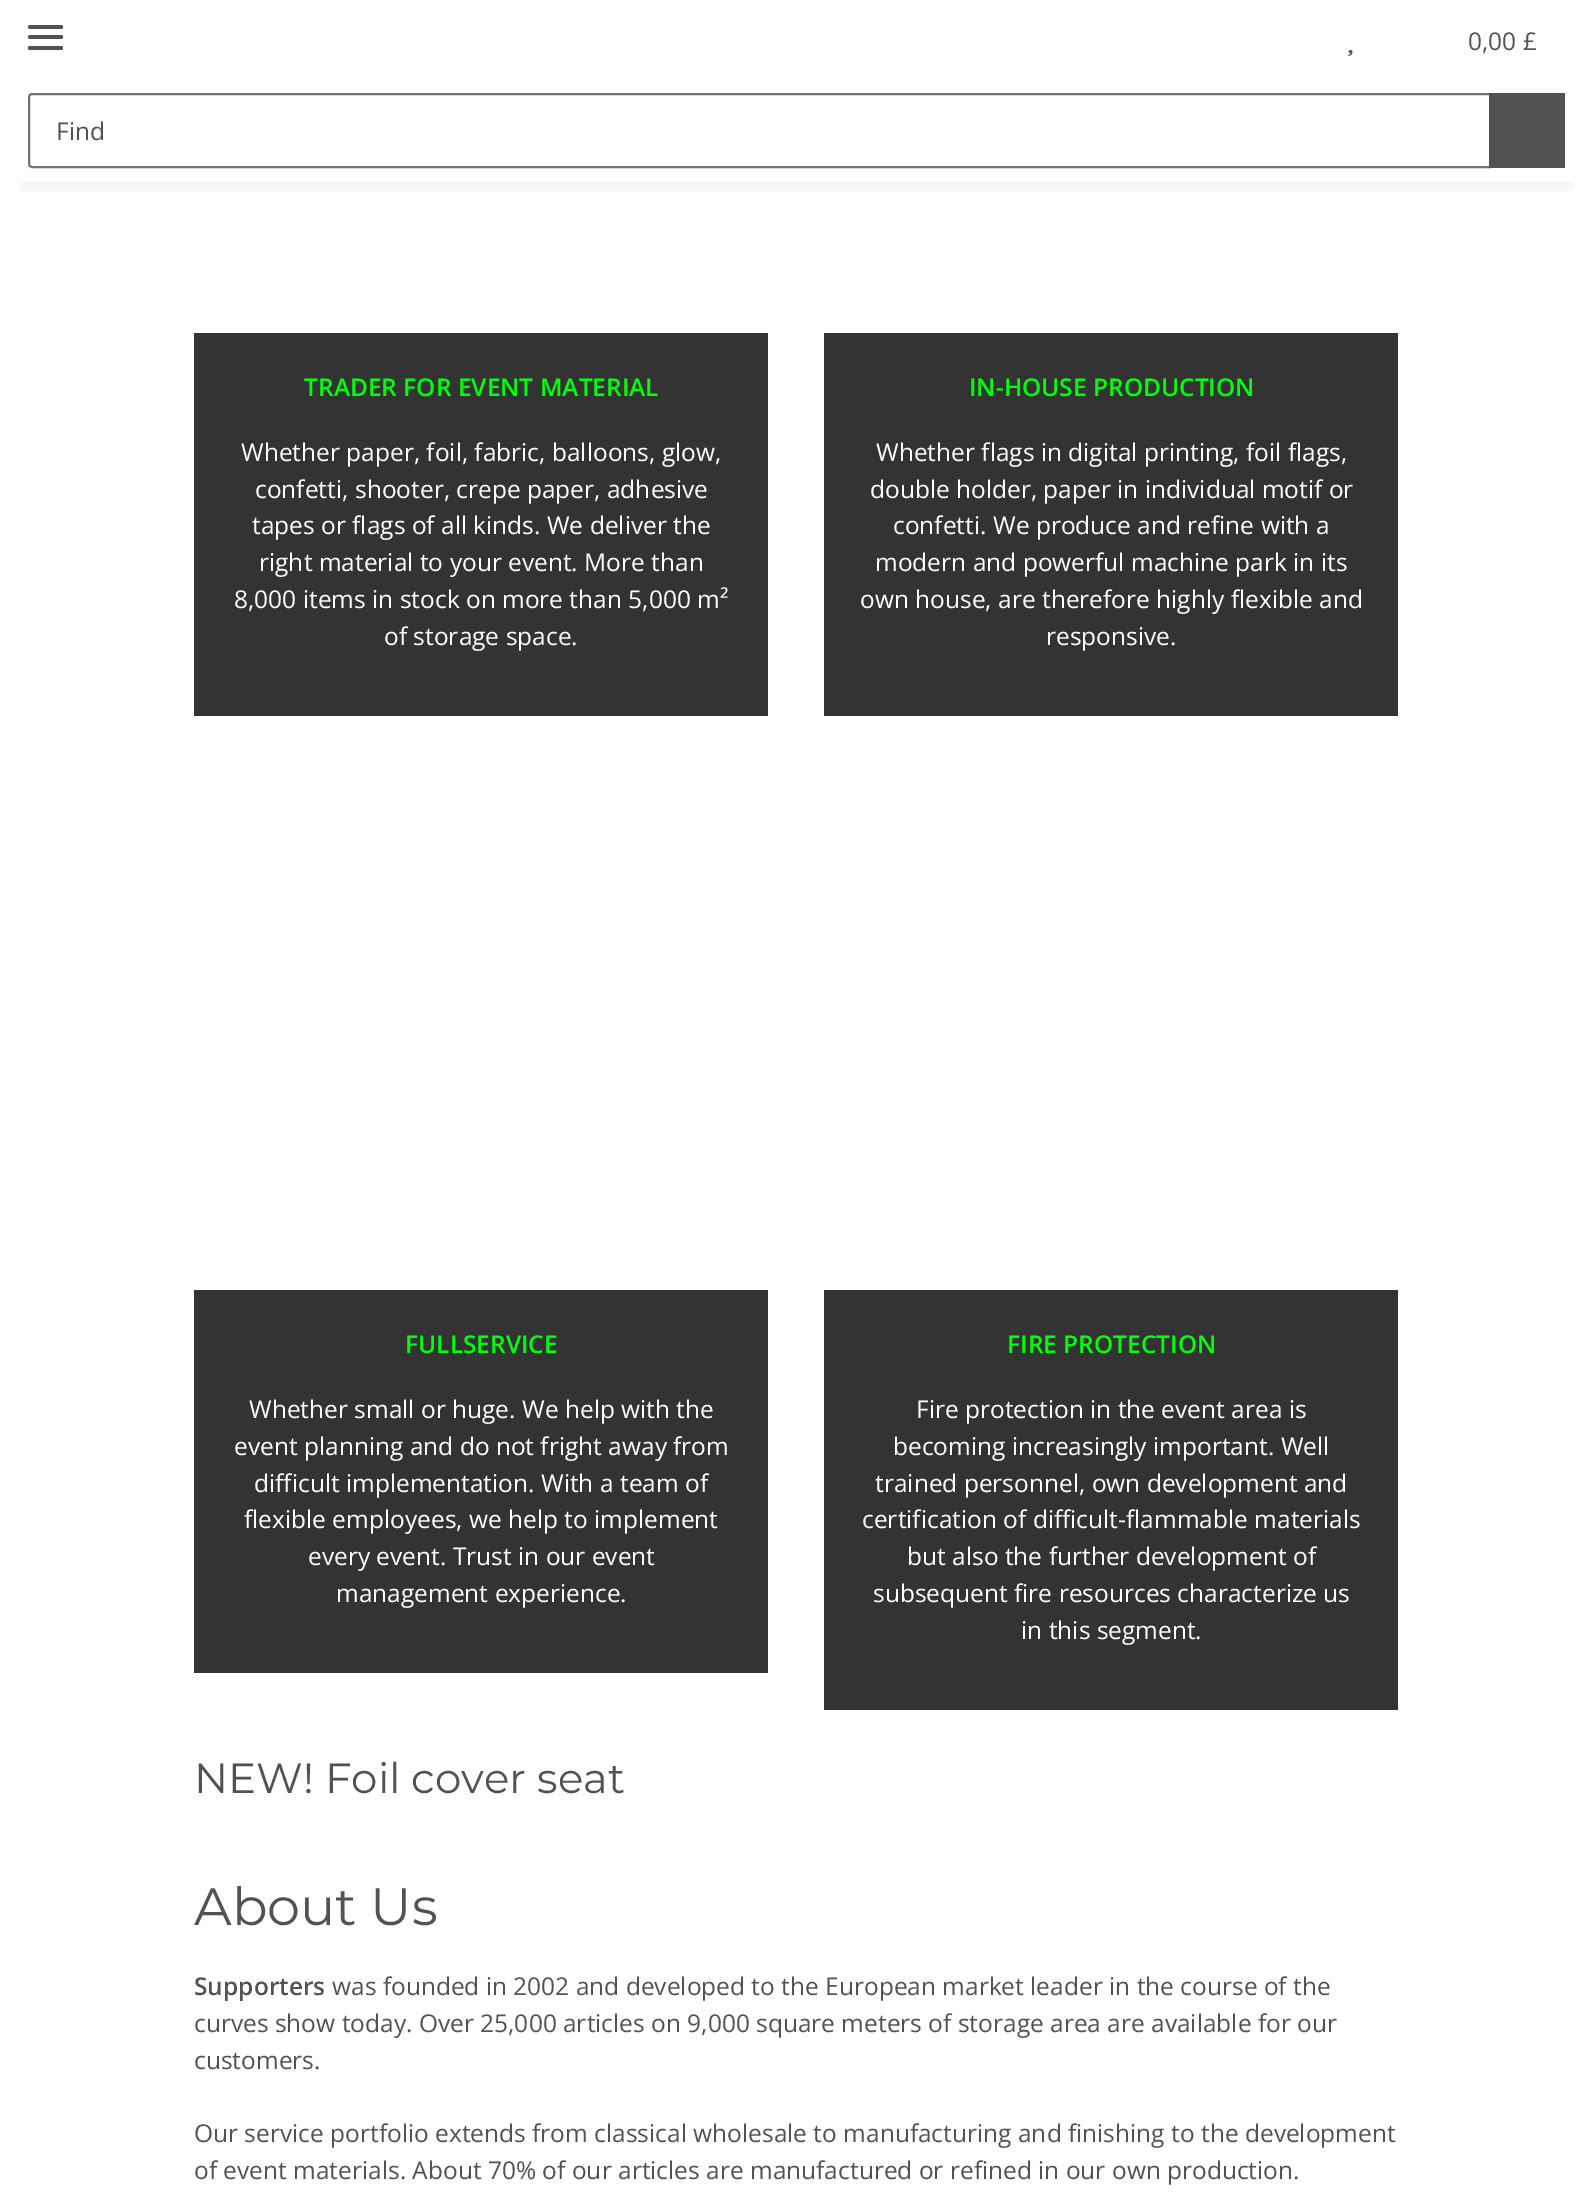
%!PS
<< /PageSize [1591 2201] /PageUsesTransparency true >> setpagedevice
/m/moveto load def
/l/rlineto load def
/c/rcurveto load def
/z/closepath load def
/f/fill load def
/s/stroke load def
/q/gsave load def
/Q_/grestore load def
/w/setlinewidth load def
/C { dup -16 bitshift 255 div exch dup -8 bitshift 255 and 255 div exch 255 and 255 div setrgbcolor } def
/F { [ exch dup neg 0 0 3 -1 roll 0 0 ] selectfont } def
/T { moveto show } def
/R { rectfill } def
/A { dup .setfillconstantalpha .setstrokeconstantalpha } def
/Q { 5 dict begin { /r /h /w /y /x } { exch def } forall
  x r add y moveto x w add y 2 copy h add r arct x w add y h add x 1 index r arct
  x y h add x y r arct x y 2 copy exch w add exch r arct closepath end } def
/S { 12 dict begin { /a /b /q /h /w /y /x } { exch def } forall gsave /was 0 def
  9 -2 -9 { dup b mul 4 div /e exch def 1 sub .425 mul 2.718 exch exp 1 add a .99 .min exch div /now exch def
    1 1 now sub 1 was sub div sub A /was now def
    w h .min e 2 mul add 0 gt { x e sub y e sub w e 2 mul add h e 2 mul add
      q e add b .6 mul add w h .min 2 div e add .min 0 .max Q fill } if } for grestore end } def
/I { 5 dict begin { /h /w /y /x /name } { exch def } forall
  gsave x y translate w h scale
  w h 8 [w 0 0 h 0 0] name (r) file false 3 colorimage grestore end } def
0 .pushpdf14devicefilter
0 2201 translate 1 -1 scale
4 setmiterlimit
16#FFFFFF C
0 0 1591 2201 R
q
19 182 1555 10 rectclip
16#000000 C
21 49 1551 140 0 8 .06 S
Q_
16#525252 C
28 35 35 4 2 Q f
28 25 35 4 2 Q f
28 46 35 4 2 Q f
(1.rgb) 1348 50 5 7 I
/OpenSans-Regular 24.5 F
(0,00 £) 1468 50 T
16#707070 C
2 w
32 94 m 1458 0 l 0 73 l -1458 0 l -1.5 0 -3 -1.5 -3 -3 c 0 -67 l 0 -1.5 1.5 -3 3 -3 c z s
16#525252 C
(Find) 56 140 T
1489 93 76 75 R
16#333333 C
194 333 574 383 R
/OpenSans-SemiBold 24.5 F
16#00FF0B C
(TRADER FOR EVENT MATERIAL) 304 396 T
/OpenSans-Regular 24.5 F
16#FFFFFF C
(Whether paper, foil, fabric, balloons, glow,) 241 461 T
(confetti, shooter, crepe paper, adhesive) 255 498 T
(tapes or flags of all kinds. We deliver the) 252 534 T
(right material to your event. More than) 259 571 T
(8,000 items in stock on more than 5,000 m²) 234 608 T
(of storage space.) 384 645 T
16#333333 C
824 333 574 383 R
/OpenSans-SemiBold 24.5 F
16#00FF0B C
(IN-HOUSE PRODUCTION) 969 396 T
/OpenSans-Regular 24.5 F
16#FFFFFF C
(Whether flags in digital printing, foil flags,) 876 461 T
(double holder, paper in individual motif or) 870 498 T
(confetti. We produce and refine with a) 893 534 T
(modern and powerful machine park in its) 875 571 T
(own house, are therefore highly flexible and) 860 608 T
(responsive.) 1046 645 T
16#333333 C
194 1290 574 383 R
/OpenSans-SemiBold 24.5 F
16#00FF0B C
(FULLSERVICE) 405 1353 T
/OpenSans-Regular 24.5 F
16#FFFFFF C
(Whether small or huge. We help with the) 249 1418 T
(event planning and do not fright away from) 234 1455 T
(difficult implementation. With a team of) 254 1492 T
(flexible employees, we help to implement) 244 1528 T
(every event. Trust in our event) 308 1565 T
(management experience.) 336 1602 T
16#333333 C
824 1290 574 420 R
/OpenSans-SemiBold 24.5 F
16#00FF0B C
(FIRE PROTECTION) 1007 1353 T
/OpenSans-Regular 24.5 F
16#FFFFFF C
(Fire protection in the event area is) 916 1418 T
(becoming increasingly important. Well) 893 1455 T
(trained personnel, own development and) 875 1492 T
(certification of difficult-flammable materials) 862 1528 T
(but also the further development of) 907 1565 T
(subsequent fire resources characterize us) 873 1602 T
(in this segment.) 1021 1639 T
/Montserrat-Regular 42 F
16#525252 C
(NEW! Foil cover seat) 194 1793 T
/Montserrat-Regular 52.5 F
(About Us) 194 1925 T
/OpenSans-SemiBold 24.5 F
(Supporters) 194 1995 T
/OpenSans-Regular 24.5 F
(was founded in 2002 and developed to the European market leader in the course of the) 332 1995 T
(curves show today. Over 25,000 articles on 9,000 square meters of storage area are available for our) 194 2032 T
(customers.) 194 2069 T
(Our service portfolio extends from classical wholesale to manufacturing and finishing to the development) 194 2142 T
(of event materials. About 70% of our articles are manufactured or refined in our own production.) 194 2179 T
.poppdf14devicefilter showpage
